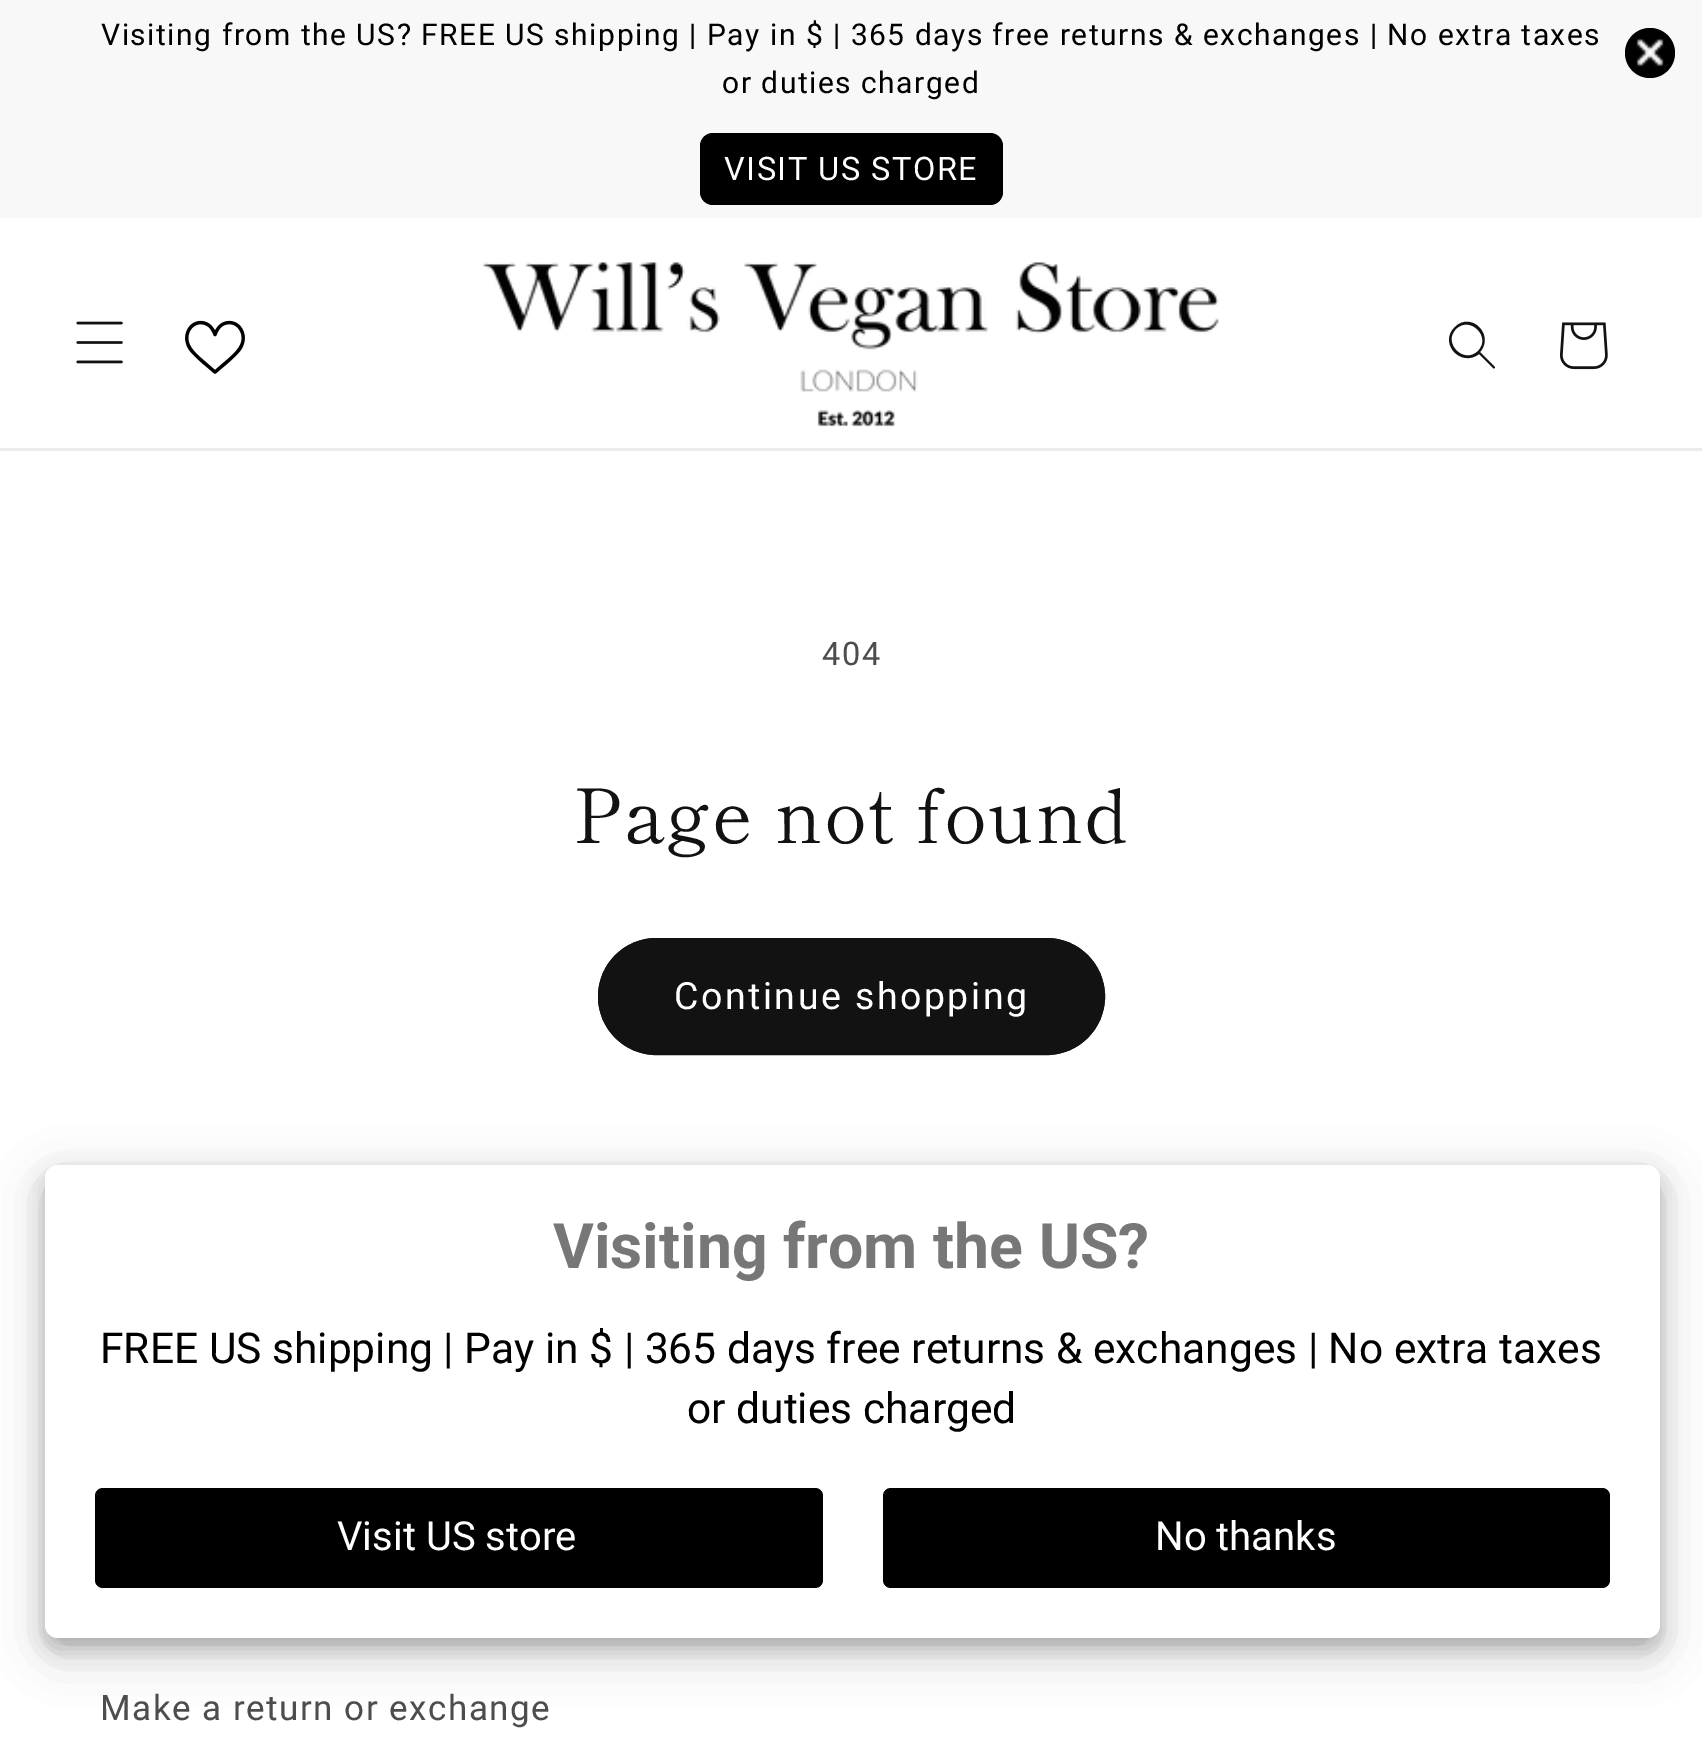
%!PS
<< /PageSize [1702 1762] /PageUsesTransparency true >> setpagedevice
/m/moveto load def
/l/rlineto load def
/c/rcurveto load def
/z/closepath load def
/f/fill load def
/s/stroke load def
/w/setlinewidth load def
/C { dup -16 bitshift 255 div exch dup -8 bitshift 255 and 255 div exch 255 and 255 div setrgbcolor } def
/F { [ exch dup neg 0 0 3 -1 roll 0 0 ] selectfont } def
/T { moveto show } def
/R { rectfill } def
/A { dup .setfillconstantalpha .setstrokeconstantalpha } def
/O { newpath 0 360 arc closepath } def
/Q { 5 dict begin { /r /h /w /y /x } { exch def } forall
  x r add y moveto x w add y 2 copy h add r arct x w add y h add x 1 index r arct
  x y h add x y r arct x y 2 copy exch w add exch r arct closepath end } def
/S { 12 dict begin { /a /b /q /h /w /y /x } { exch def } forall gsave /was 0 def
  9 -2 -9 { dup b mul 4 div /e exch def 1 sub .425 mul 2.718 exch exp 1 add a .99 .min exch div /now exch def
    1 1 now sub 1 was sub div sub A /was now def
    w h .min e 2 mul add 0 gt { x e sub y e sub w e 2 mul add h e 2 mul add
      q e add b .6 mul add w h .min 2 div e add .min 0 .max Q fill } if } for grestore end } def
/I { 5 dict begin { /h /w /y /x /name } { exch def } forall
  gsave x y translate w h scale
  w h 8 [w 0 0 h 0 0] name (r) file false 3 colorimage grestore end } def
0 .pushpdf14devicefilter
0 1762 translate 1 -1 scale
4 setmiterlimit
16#FFFFFF C
0 0 1702 1762 R
16#F8F8F8 C
0 0 1702 218 R
/Roboto-Regular 30 F
16#000000 C
101 45 m 1.5 0 (Visiting from the US? FREE US shipping | Pay in $ | 365 days free returns & exchanges | No extra taxes) ashow
1650 53 25 O f
(1.rgb) 1636 38 28 29 I
722 93 m 1.5 0 (or duties charged) ashow
700 133 303 72 13 Q f
/Roboto-Regular 32.5 F
16#FFFFFF C
724 180 m 1.5 0 (VISIT US STORE) ashow
16#ECECEC C
0 448 1702 3 R
(2.rgb) 76 321 47 43 I
(3.rgb) 185 320 60 54 I
(4.rgb) 482 262 737 165 I
16#121212 C
1478 351 m -14 14 -36 -8 -22 -22 c 14 -14 36 8 22 22 c 1479 354 m -18 14 -41 -11 -24 -27 c 16 -16 40 8 25 25 c 15 15 l 0 1 -1 2 -2 1 c z eofill
(5.rgb) 1560 322 48 48 I
16#4D4D4D C
822 665 m 1.5 0 (404) ashow
/ShipporiMincho-Regular 75 F
16#121212 C
573 843 m 1.5 0 (Page not found) ashow
598 938 507 117 58.5 Q f
3 w
599.5 939.5 504 114 57 Q s
/Roboto-Regular 37.5 F
16#FFFFFF C
674 1009 m 2.5 0 (Continue shopping) ashow
16#000000 C
45 1180 1615 473 13 25 .19 S
45 1175 1615 473 13 10 .2 S
16#FFFFFF C
45 1165 1615 473 13 Q f
/Roboto-Bold 62.5 F
16#777777 C
(Visiting from the US?) 553 1268 T
/Roboto-Regular 42.5 F
16#000000 C
(FREE US shipping | Pay in $ | 365 days free returns & exchanges | No extra taxes) 100 1363 T
(or duties charged) 687 1423 T
95 1488 728 100 8 Q f
/Roboto-Regular 40 F
16#FFFFFF C
(Visit US store) 337 1550 T
16#000000 C
883 1488 727 100 8 Q f
16#FFFFFF C
(No thanks) 1155 1550 T
/Roboto-Regular 35 F
16#4D4D4D C
100 1720 m 1.5 0 (Make a return or exchange) ashow
.poppdf14devicefilter showpage
